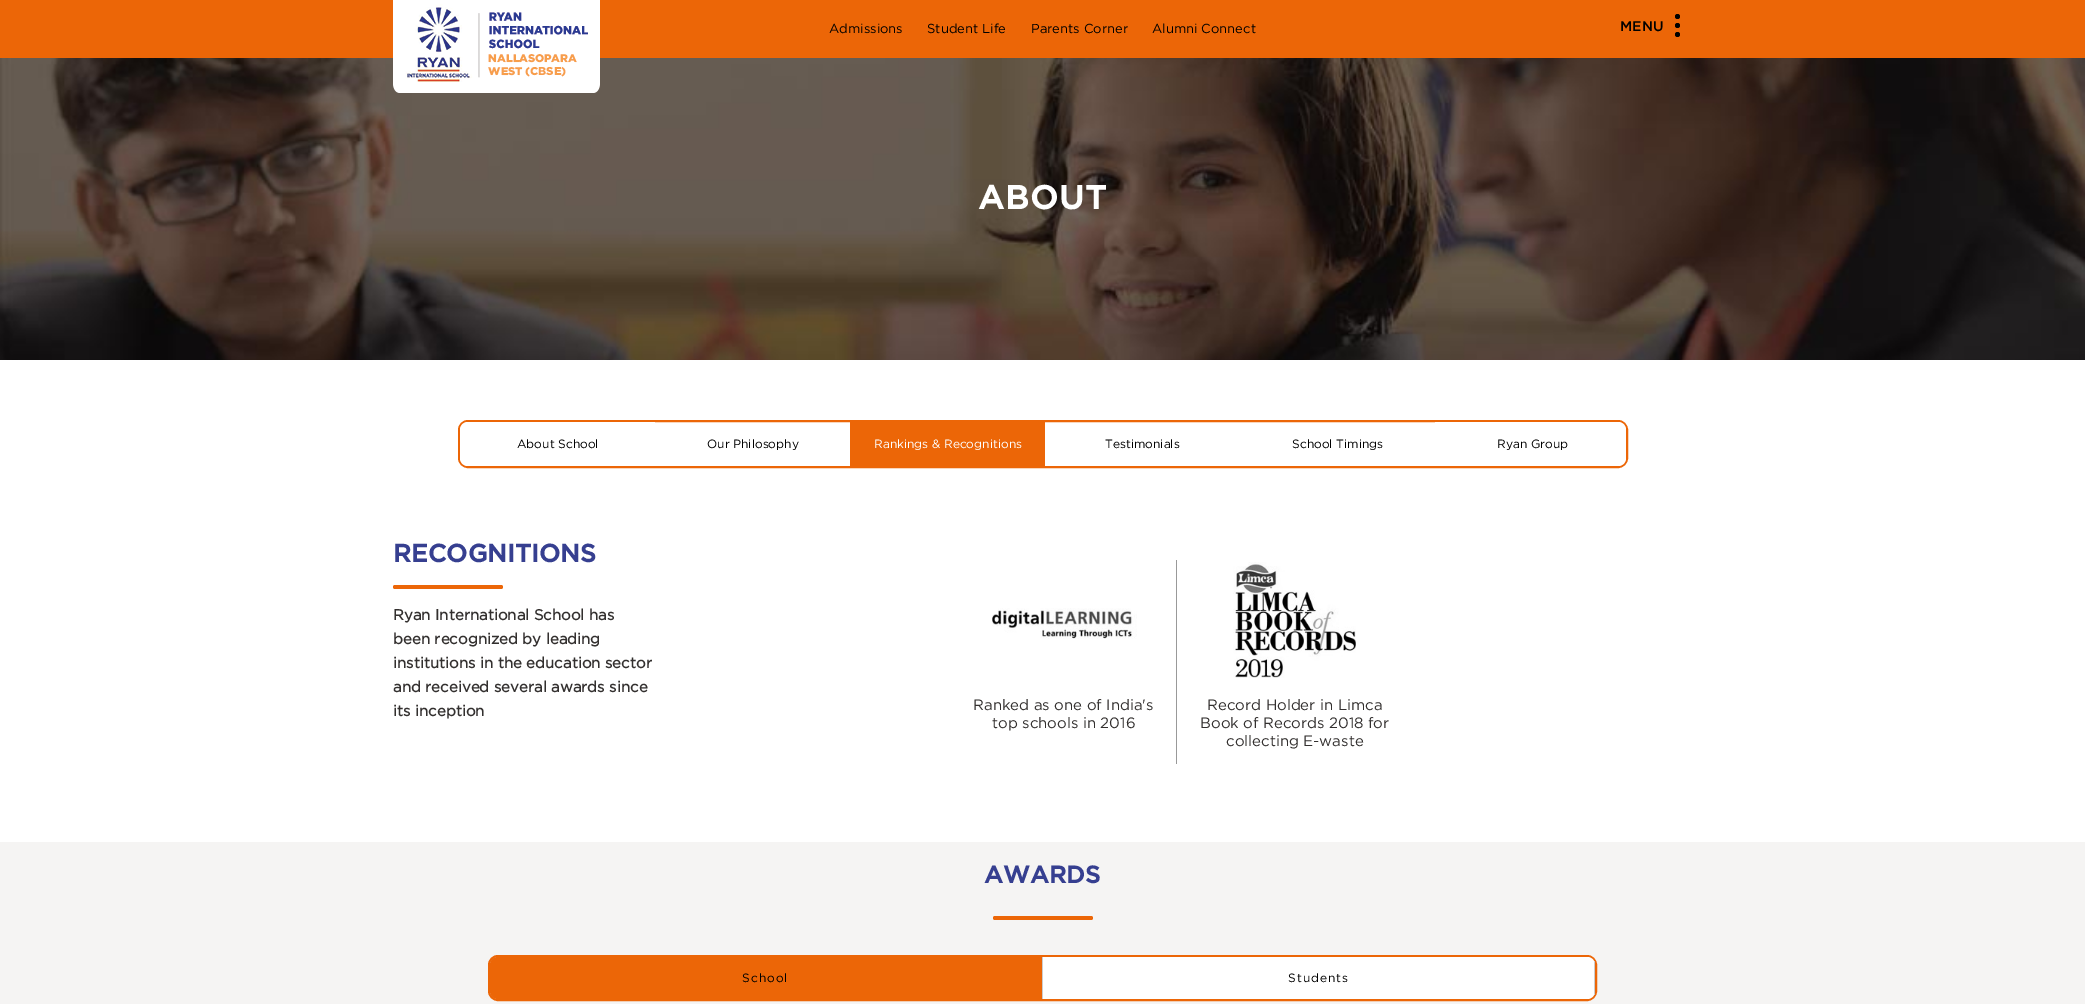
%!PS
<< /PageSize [2085 1004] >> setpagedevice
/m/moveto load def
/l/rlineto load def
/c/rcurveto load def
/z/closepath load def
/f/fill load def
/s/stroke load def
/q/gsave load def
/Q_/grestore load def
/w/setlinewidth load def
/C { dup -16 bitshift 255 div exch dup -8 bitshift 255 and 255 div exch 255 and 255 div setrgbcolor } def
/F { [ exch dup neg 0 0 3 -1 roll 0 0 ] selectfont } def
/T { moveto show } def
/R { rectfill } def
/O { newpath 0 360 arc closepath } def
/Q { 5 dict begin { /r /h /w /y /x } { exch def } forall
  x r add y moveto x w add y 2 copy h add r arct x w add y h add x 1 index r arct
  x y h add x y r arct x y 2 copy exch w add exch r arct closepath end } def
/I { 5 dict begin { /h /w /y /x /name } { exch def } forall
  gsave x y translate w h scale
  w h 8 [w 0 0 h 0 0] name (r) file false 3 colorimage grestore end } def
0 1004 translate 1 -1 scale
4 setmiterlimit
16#FFFFFF C
0 0 2085 1004 R
16#EC6607 C
0 0 2085 58 R
(2.rgb) 0 58 2085 302 I
(1.rgb) 393 0 207 93 I
/Gotham-Regular 13 F
16#000000 C
(Admissions) 829 33 T
(Student Life) 927 33 T
(Parents Corner) 1031 33 T
(Alumni Connect) 1152 33 T
/Gotham-Medium 14 F
(MENU) 1620 31 T
1677.5 16.5 2.5 O f
1677.5 25.5 2.5 O f
1677.5 34.5 2.5 O f
/Gotham-Bold 33 F
16#FFFFFF C
978 209 m 1 0 (ABOUT) ashow
16#EC6607 C
2 w
459 421 1168 46 9 Q s
16#FFFFFF C
468 422 m 187 0 l 0 44 l -187 0 l -4.5 0 -8 -3.5 -8 -8 c 0 -28 l 0 -4.5 3.5 -8 8 -8 c z f
/Gotham-Regular 12 F
16#000000 C
(About School) 517 448 T
(Our Philosophy) 707 448 T
16#EC6607 C
850 422 195 44 R
16#FFFFFF C
(Rankings & Recognitions) 874 448 T
16#000000 C
(Testimonials) 1105 448 T
(School Timings) 1292 448 T
16#FFFFFF C
1435 422 m 183 0 l 4.5 0 8 3.5 8 8 c 0 28 l 0 4.5 -3.5 8 -8 8 c -183 0 l z f
16#000000 C
(Ryan Group) 1497 448 T
/Gotham-Bold 25 F
16#363F90 C
(RECOGNITIONS) 393 562 T
16#EC6607 C
393 585 110 4 2 Q f
/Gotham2-Bold 15 F
16#33302F C
(Ryan International School has) 393 620 T
(been recognized by leading) 393 644 T
(institutions in the education sector) 393 668 T
(and received several awards since) 393 692 T
(its inception) 393 716 T
16#999999 C
1176 560 1 204 R
(3.rgb) 992 608 145 31 I
/Gotham-Regular 15 F
16#33302F C
(Ranked as one of India's) 973 710 T
(top schools in 2016) 992 728 T
(4.rgb) 1233 562 123 116 I
(Record Holder in Limca) 1207 710 T
(Book of Records 2018 for) 1200 728 T
(collecting E-waste) 1226 746 T
16#F5F4F3 C
0 842 2085 162 R
/Gotham-Bold 24 F
16#363F90 C
(AWARDS) 984 883 T
16#EC6607 C
993 916 100 4 2 Q f
489 956 1107 44 9 Q s
498 957 m 545 0 l 0 42 l -545 0 l -4.5 0 -8 -3.5 -8 -8 c 0 -26 l 0 -4.5 3.5 -8 8 -8 c z f
16#CCCCCC C
1042 957 1 42 R
/Gotham-Regular 12 F
16#000000 C
742 982 m 1 0 (School) ashow
16#FFFFFF C
1043 957 m 544 0 l 4.5 0 8 3.5 8 8 c 0 26 l 0 4.5 -3.5 8 -8 8 c -544 0 l z f
q
490 957 1105 42 8 Q clip newpath
16#CCCCCC C
1594 957 1 42 R
Q_
16#000000 C
1288 982 m 1 0 (Students) ashow
showpage
